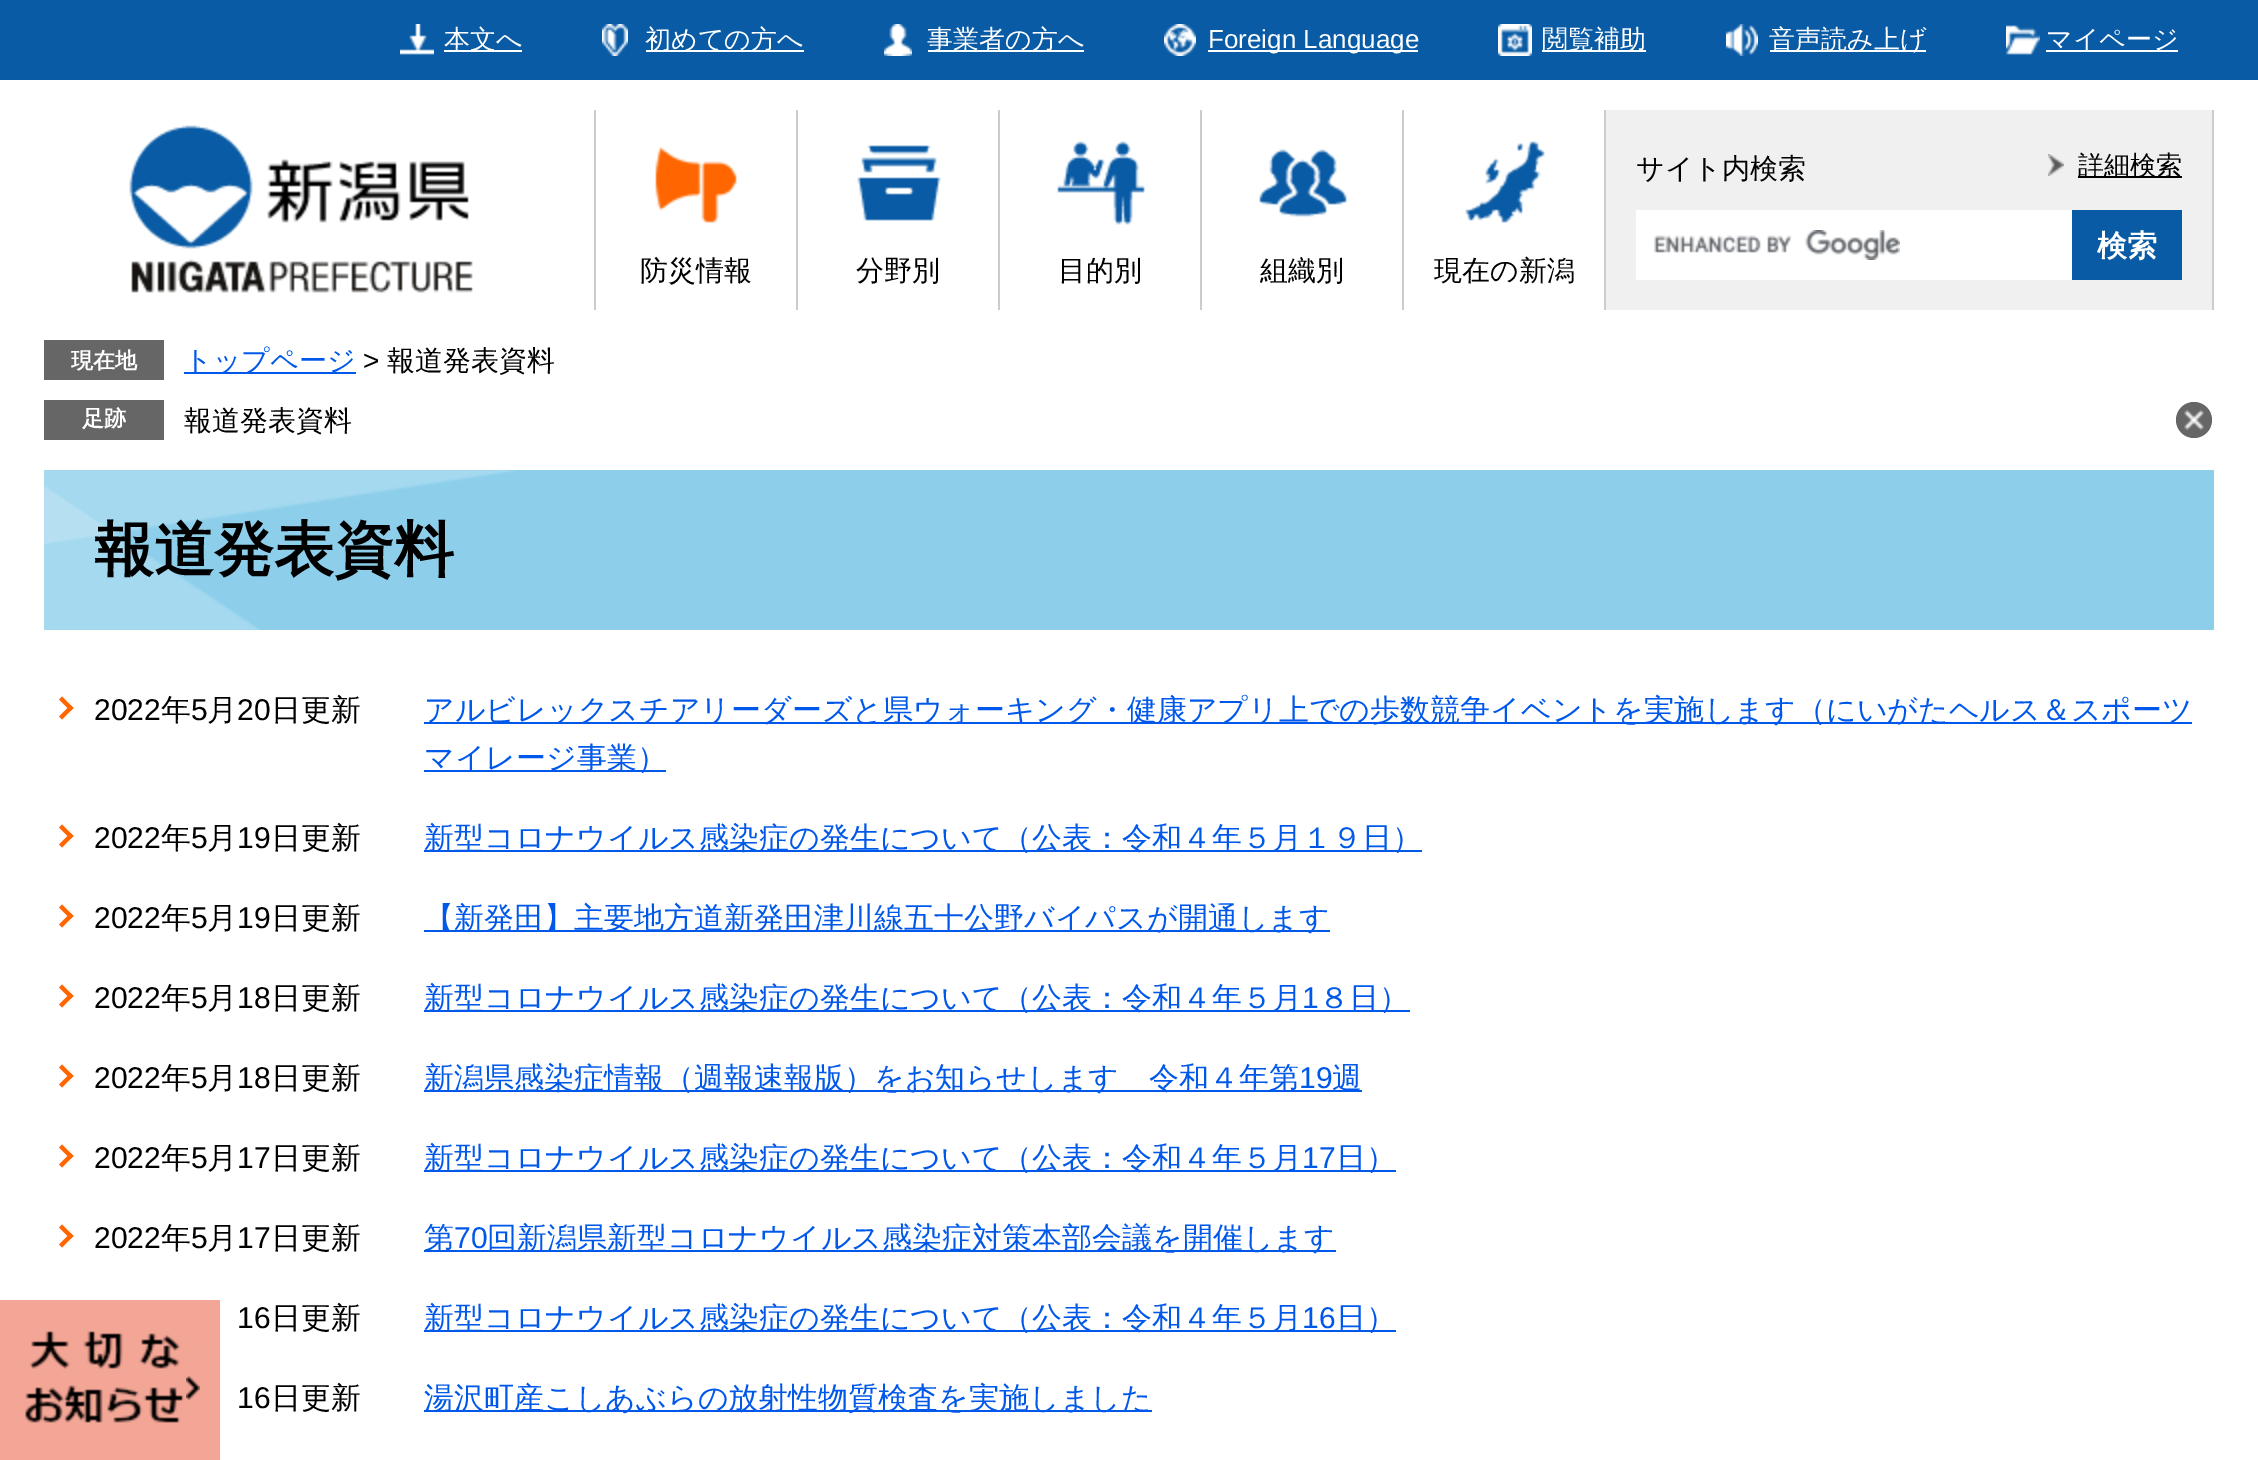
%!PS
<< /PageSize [2258 1460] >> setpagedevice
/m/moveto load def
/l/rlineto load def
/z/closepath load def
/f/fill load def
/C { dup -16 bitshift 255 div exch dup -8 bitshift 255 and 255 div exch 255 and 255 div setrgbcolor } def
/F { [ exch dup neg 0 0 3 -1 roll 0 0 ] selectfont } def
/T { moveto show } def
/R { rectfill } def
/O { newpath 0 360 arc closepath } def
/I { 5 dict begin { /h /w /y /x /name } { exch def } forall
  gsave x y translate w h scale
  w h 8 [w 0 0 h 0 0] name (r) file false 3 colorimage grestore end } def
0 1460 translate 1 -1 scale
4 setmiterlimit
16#FFFFFF C
0 0 2258 1460 R
16#095BA5 C
0 0 2258 80 R
(1.rgb) 400 24 34 31 I
16#FFFFFF C
444 50 78 2 R
/WenQuanYiZenHei-Medium 26 F
(本文へ) 444 48 T
(2.rgb) 602 24 26 32 I
646 50 158 2 R
(初めての方へ) 645 48 T
(3.rgb) 884 24 28 32 I
928 50 156 2 R
(事業者の方へ) 927 48 T
(4.rgb) 1164 24 32 32 I
1208 50 210 2 R
/LiberationSans-Regular 26 F
(Foreign Language) 1208 48 T
(5.rgb) 1498 24 34 32 I
1542 50 104 2 R
/WenQuanYiZenHei-Medium 26 F
(閲覧補助) 1542 48 T
(6.rgb) 1726 24 32 32 I
1770 50 156 2 R
(音声読み上げ) 1769 48 T
(7.rgb) 2006 25 34 30 I
2046 50 132 2 R
(マイページ) 2046 48 T
(8.rgb) 129 125 344 168 I
16#F0F0F0 C
1606 110 606 200 R
16#CCCCCC C
2212 110 2 200 R
1604 110 2 200 R
(9.rgb) 2048 154 16 22 I
16#000000 C
2078 176 104 2 R
(詳細検索) 2078 174 T
/WenQuanYiZenHei-Medium 28 F
(サイト内検索) 1636 178 T
16#FFFFFF C
1636 210 436 70 R
(10.rgb) 1654 230 246 30 I
16#095BA5 C
2072 210 110 70 R
/WenQuanYiZenHei-Bold 30 F
16#FFFFFF C
(検索) 2097 256 T
16#CCCCCC C
594 110 2 200 R
(11.rgb) 655 147 82 76 I
/WenQuanYiZenHei-Medium 28 F
16#000000 C
(防災情報) 640 280 T
16#CCCCCC C
796 110 2 200 R
(12.rgb) 857 145 84 76 I
16#000000 C
(分野別) 856 280 T
16#CCCCCC C
998 110 2 200 R
(13.rgb) 1057 141 88 84 I
16#000000 C
(目的別) 1058 280 T
16#CCCCCC C
1200 110 2 200 R
(14.rgb) 1259 149 88 68 I
16#000000 C
(組織別) 1260 280 T
16#CCCCCC C
1402 110 2 200 R
(15.rgb) 1465 141 80 82 I
16#000000 C
(現在の新潟) 1434 280 T
16#666666 C
44 340 120 40 R
/WenQuanYiZenHei-Bold 22 F
16#FFFFFF C
(現在地) 71 368 T
16#0058EA C
184 372 172 2 R
/WenQuanYiZenHei-Medium 28 F
(トップページ) 184 370 T
/LiberationSans-Regular 28 F
16#000000 C
(>) 363 370 T
/WenQuanYiZenHei-Medium 28 F
(報道発表資料) 387 370 T
16#666666 C
44 400 120 40 R
/WenQuanYiZenHei-Bold 22 F
16#FFFFFF C
(足跡) 82 426 T
/WenQuanYiZenHei-Medium 28 F
16#000000 C
(報道発表資料) 184 430 T
16#666666 C
2194 420 18 O f
(16.rgb) 2184 410 20 20 I
16#8DCFEB C
44 470 2170 160 R
(17.rgb) 44 470 472 160 I
/WenQuanYiZenHei-Bold 60 F
16#000000 C
(報道発表資料) 94 570 T
16#FF6600 C
62 696.5 m 11.5 11.5 l -3 3 l -11.5 -11.5 l z f
70.5 705 m 3 3 l -11.5 11.5 l -3 -3 l z f
/LiberationSans-Regular 30 F
16#000000 C
(2022) 94 720 T
/WenQuanYiZenHei-Medium 30 F
(年) 161 720 T
/LiberationSans-Regular 30 F
(5) 191 720 T
/WenQuanYiZenHei-Medium 30 F
(月) 207 720 T
/LiberationSans-Regular 30 F
(20) 237 720 T
/WenQuanYiZenHei-Medium 30 F
(日更新) 271 720 T
16#0058EA C
424 722 1768 2 R
(アルビレックスチアリーダーズと県ウォーキング・健康アプリ上での歩数競争イベントを実施します（にいがたヘルス＆スポーツ) 424 720 T
424 770 242 2 R
(マイレージ事業）) 424 768 T
16#FF6600 C
62 824.5 m 11.5 11.5 l -3 3 l -11.5 -11.5 l z f
70.5 833 m 3 3 l -11.5 11.5 l -3 -3 l z f
/LiberationSans-Regular 30 F
16#000000 C
(2022) 94 848 T
/WenQuanYiZenHei-Medium 30 F
(年) 161 848 T
/LiberationSans-Regular 30 F
(5) 191 848 T
/WenQuanYiZenHei-Medium 30 F
(月) 207 848 T
/LiberationSans-Regular 30 F
(19) 237 848 T
/WenQuanYiZenHei-Medium 30 F
(日更新) 271 848 T
16#0058EA C
424 850 998 2 R
(新型コロナウイルス感染症の発生について（公表：令和４年５月１９日）) 424 848 T
16#FF6600 C
62 904.5 m 11.5 11.5 l -3 3 l -11.5 -11.5 l z f
70.5 913 m 3 3 l -11.5 11.5 l -3 -3 l z f
/LiberationSans-Regular 30 F
16#000000 C
(2022) 94 928 T
/WenQuanYiZenHei-Medium 30 F
(年) 161 928 T
/LiberationSans-Regular 30 F
(5) 191 928 T
/WenQuanYiZenHei-Medium 30 F
(月) 207 928 T
/LiberationSans-Regular 30 F
(19) 237 928 T
/WenQuanYiZenHei-Medium 30 F
(日更新) 271 928 T
16#0058EA C
424 930 906 2 R
(【新発田】主要地方道新発田津川線五十公野バイパスが開通します) 424 928 T
16#FF6600 C
62 984.5 m 11.5 11.5 l -3 3 l -11.5 -11.5 l z f
70.5 993 m 3 3 l -11.5 11.5 l -3 -3 l z f
/LiberationSans-Regular 30 F
16#000000 C
(2022) 94 1008 T
/WenQuanYiZenHei-Medium 30 F
(年) 161 1008 T
/LiberationSans-Regular 30 F
(5) 191 1008 T
/WenQuanYiZenHei-Medium 30 F
(月) 207 1008 T
/LiberationSans-Regular 30 F
(18) 237 1008 T
/WenQuanYiZenHei-Medium 30 F
(日更新) 271 1008 T
16#0058EA C
424 1010 986 2 R
(新型コロナウイルス感染症の発生について（公表：令和４年５月) 424 1008 T
/LiberationSans-Regular 30 F
(1) 1302 1008 T
/WenQuanYiZenHei-Medium 30 F
(８日）) 1319 1008 T
16#FF6600 C
62 1064.5 m 11.5 11.5 l -3 3 l -11.5 -11.5 l z f
70.5 1073 m 3 3 l -11.5 11.5 l -3 -3 l z f
/LiberationSans-Regular 30 F
16#000000 C
(2022) 94 1088 T
/WenQuanYiZenHei-Medium 30 F
(年) 161 1088 T
/LiberationSans-Regular 30 F
(5) 191 1088 T
/WenQuanYiZenHei-Medium 30 F
(月) 207 1088 T
/LiberationSans-Regular 30 F
(18) 237 1088 T
/WenQuanYiZenHei-Medium 30 F
(日更新) 271 1088 T
16#0058EA C
424 1090 938 2 R
(新潟県感染症情報（週報速報版）をお知らせします　令和４年第) 424 1088 T
/LiberationSans-Regular 30 F
(19) 1299 1088 T
/WenQuanYiZenHei-Medium 30 F
(週) 1332 1088 T
16#FF6600 C
62 1144.5 m 11.5 11.5 l -3 3 l -11.5 -11.5 l z f
70.5 1153 m 3 3 l -11.5 11.5 l -3 -3 l z f
/LiberationSans-Regular 30 F
16#000000 C
(2022) 94 1168 T
/WenQuanYiZenHei-Medium 30 F
(年) 161 1168 T
/LiberationSans-Regular 30 F
(5) 191 1168 T
/WenQuanYiZenHei-Medium 30 F
(月) 207 1168 T
/LiberationSans-Regular 30 F
(17) 237 1168 T
/WenQuanYiZenHei-Medium 30 F
(日更新) 271 1168 T
16#0058EA C
424 1170 972 2 R
(新型コロナウイルス感染症の発生について（公表：令和４年５月) 424 1168 T
/LiberationSans-Regular 30 F
(17) 1302 1168 T
/WenQuanYiZenHei-Medium 30 F
(日）) 1336 1168 T
16#FF6600 C
62 1224.5 m 11.5 11.5 l -3 3 l -11.5 -11.5 l z f
70.5 1233 m 3 3 l -11.5 11.5 l -3 -3 l z f
/LiberationSans-Regular 30 F
16#000000 C
(2022) 94 1248 T
/WenQuanYiZenHei-Medium 30 F
(年) 161 1248 T
/LiberationSans-Regular 30 F
(5) 191 1248 T
/WenQuanYiZenHei-Medium 30 F
(月) 207 1248 T
/LiberationSans-Regular 30 F
(17) 237 1248 T
/WenQuanYiZenHei-Medium 30 F
(日更新) 271 1248 T
16#0058EA C
424 1250 912 2 R
(第) 424 1248 T
/LiberationSans-Regular 30 F
(70) 454 1248 T
/WenQuanYiZenHei-Medium 30 F
(回新潟県新型コロナウイルス感染症対策本部会議を開催します) 487 1248 T
/LiberationSans-Regular 30 F
16#000000 C
(16) 237 1328 T
/WenQuanYiZenHei-Medium 30 F
(日更新) 271 1328 T
16#0058EA C
424 1330 972 2 R
(新型コロナウイルス感染症の発生について（公表：令和４年５月) 424 1328 T
/LiberationSans-Regular 30 F
(16) 1302 1328 T
/WenQuanYiZenHei-Medium 30 F
(日）) 1336 1328 T
/LiberationSans-Regular 30 F
16#000000 C
(16) 237 1408 T
/WenQuanYiZenHei-Medium 30 F
(日更新) 271 1408 T
16#0058EA C
424 1410 728 2 R
(湯沢町産こしあぶらの放射性物質検査を実施しました) 424 1408 T
(18.rgb) 0 1300 220 160 I
(19.rgb) 186 1376 14 24 I
showpage
